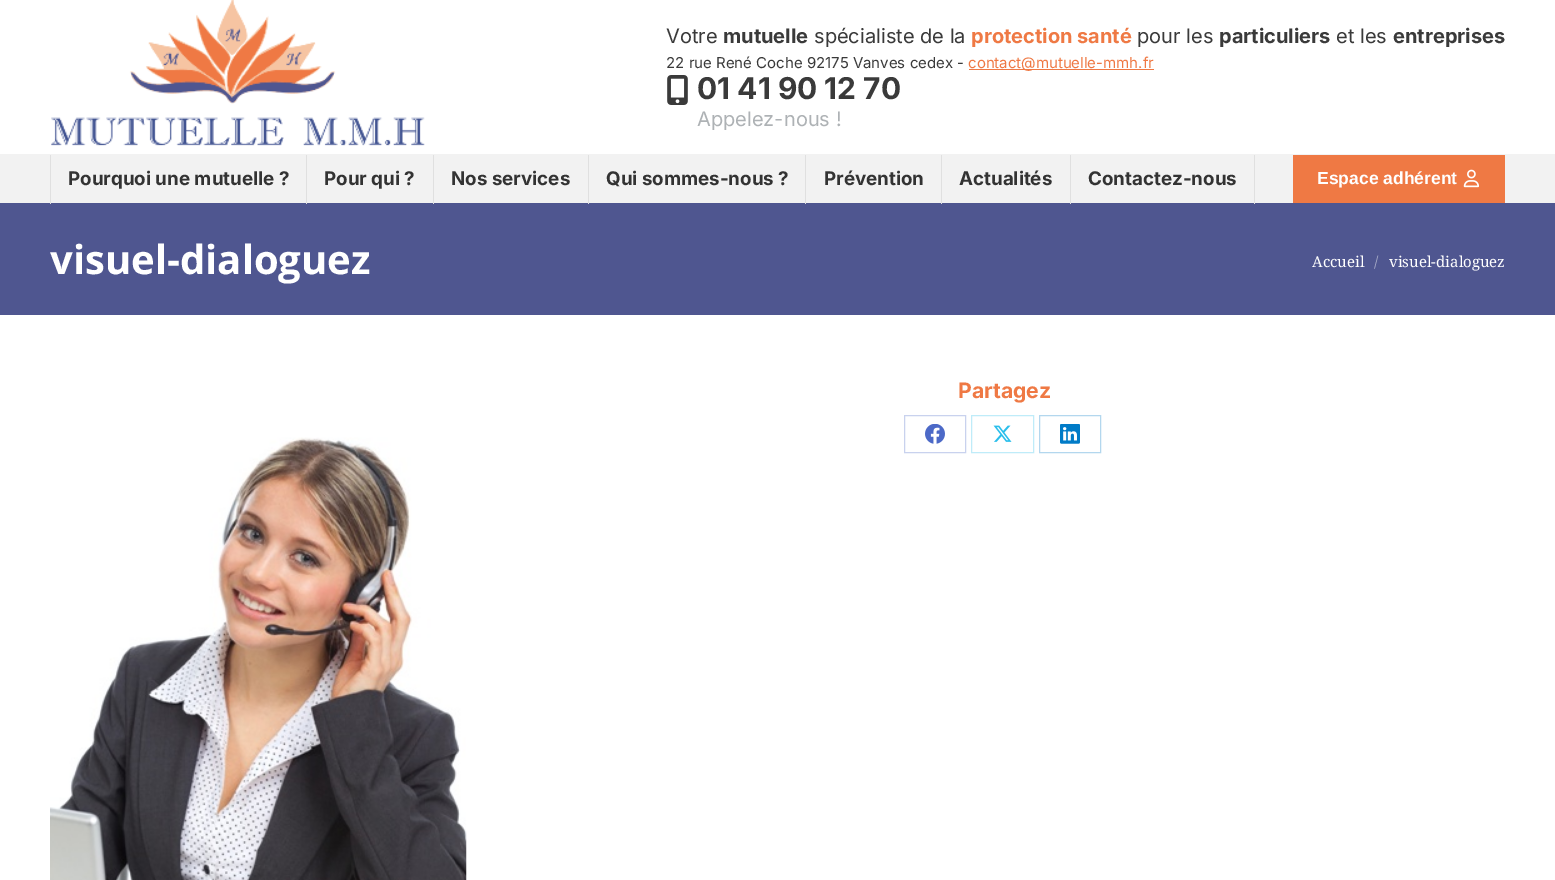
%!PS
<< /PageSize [1555 880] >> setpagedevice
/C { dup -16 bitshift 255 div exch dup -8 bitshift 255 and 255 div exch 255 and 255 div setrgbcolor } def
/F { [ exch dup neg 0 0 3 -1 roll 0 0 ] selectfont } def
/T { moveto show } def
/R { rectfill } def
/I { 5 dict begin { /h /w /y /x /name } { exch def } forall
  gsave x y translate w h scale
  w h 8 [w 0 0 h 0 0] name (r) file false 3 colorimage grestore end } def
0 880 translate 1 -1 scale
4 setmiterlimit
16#FFFFFF C
0 0 1555 880 R
(1.rgb) 51 0 374 146 I
/Inter-Regular 20 F
16#3A3A3A C
(Votre) 666 43 T
/Inter-Bold 20 F
(mutuelle) 723 43 T
/Inter-Regular 20 F
(spécialiste de la) 814 43 T
/Inter-Bold 20 F
16#EF7944 C
(protection santé) 971 43 T
/Inter-Regular 20 F
16#3A3A3A C
(pour les) 1137 43 T
/Inter-Bold 20 F
(particuliers) 1219 43 T
/Inter-Regular 20 F
(et les) 1336 43 T
/Inter-Bold 20 F
(entreprises) 1393 43 T
/Inter-Regular 15 F
(22 rue René Coche 92175 Vanves cedex -) 666 68 T
16#EF7944 C
969 69 185 1 R
(contact@mutuelle-mmh.fr) 968 68 T
(2.rgb) 667 75 21 30 I
/Inter-Bold 30 F
16#3A3A3A C
(01 41 90 12 70) 697 99 T
/Inter-Regular 20 F
16#AEB2B5 C
(Appelez-nous !) 697 126 T
16#F2F2F2 C
0 154 1555 49 R
16#4F5690 C
0 203 1555 112 R
16#E0E0E0 C
50 155 1 49 R
/Inter-Bold 18.75 F
16#333333 C
(Pourquoi une mutuelle ?) 68 185 T
16#E0E0E0 C
306 155 1 49 R
16#333333 C
(Pour qui ?) 324 185 T
16#E0E0E0 C
433 155 1 49 R
16#333333 C
(Nos services) 451 185 T
16#E0E0E0 C
588 155 1 49 R
16#333333 C
(Qui sommes-nous ?) 606 185 T
16#E0E0E0 C
805 155 1 49 R
16#333333 C
(Prévention) 824 185 T
16#E0E0E0 C
941 155 1 49 R
16#333333 C
(Actualités) 959 185 T
16#E0E0E0 C
1070 155 1 49 R
16#333333 C
(Contactez-nous) 1088 185 T
16#E0E0E0 C
1254 155 1 49 R
16#EF7944 C
1293 155 212 48 R
/LiberationSans-Bold 17.5 F
16#FFFFFF C
(Espace adhérent) 1317 184 T
(3.rgb) 1463 169 16 19 I
/OpenSans-Bold 40 F
(visuel-dialoguez) 50 274 T
/NotoSerif-Regular 15 F
(Accueil) 1312 267 T
16#A7ABC8 C
(/) 1374 267 T
16#FFFFFF C
(visuel-dialoguez) 1389 267 T
/Inter-Bold 21.25 F
16#EF7944 C
(Partagez) 958 398 T
16#C9D2EE C
904.5 415.5 61 37 rectstroke
(4.rgb) 925 424 20 20 I
16#BFECF9 C
971.5 415.5 62 37 rectstroke
(5.rgb) 993 425 19 17 I
16#B3D7EE C
1039.5 415.5 61 37 rectstroke
(6.rgb) 1060 424 20 20 I
(7.rgb) 50 437 417 443 I
showpage
